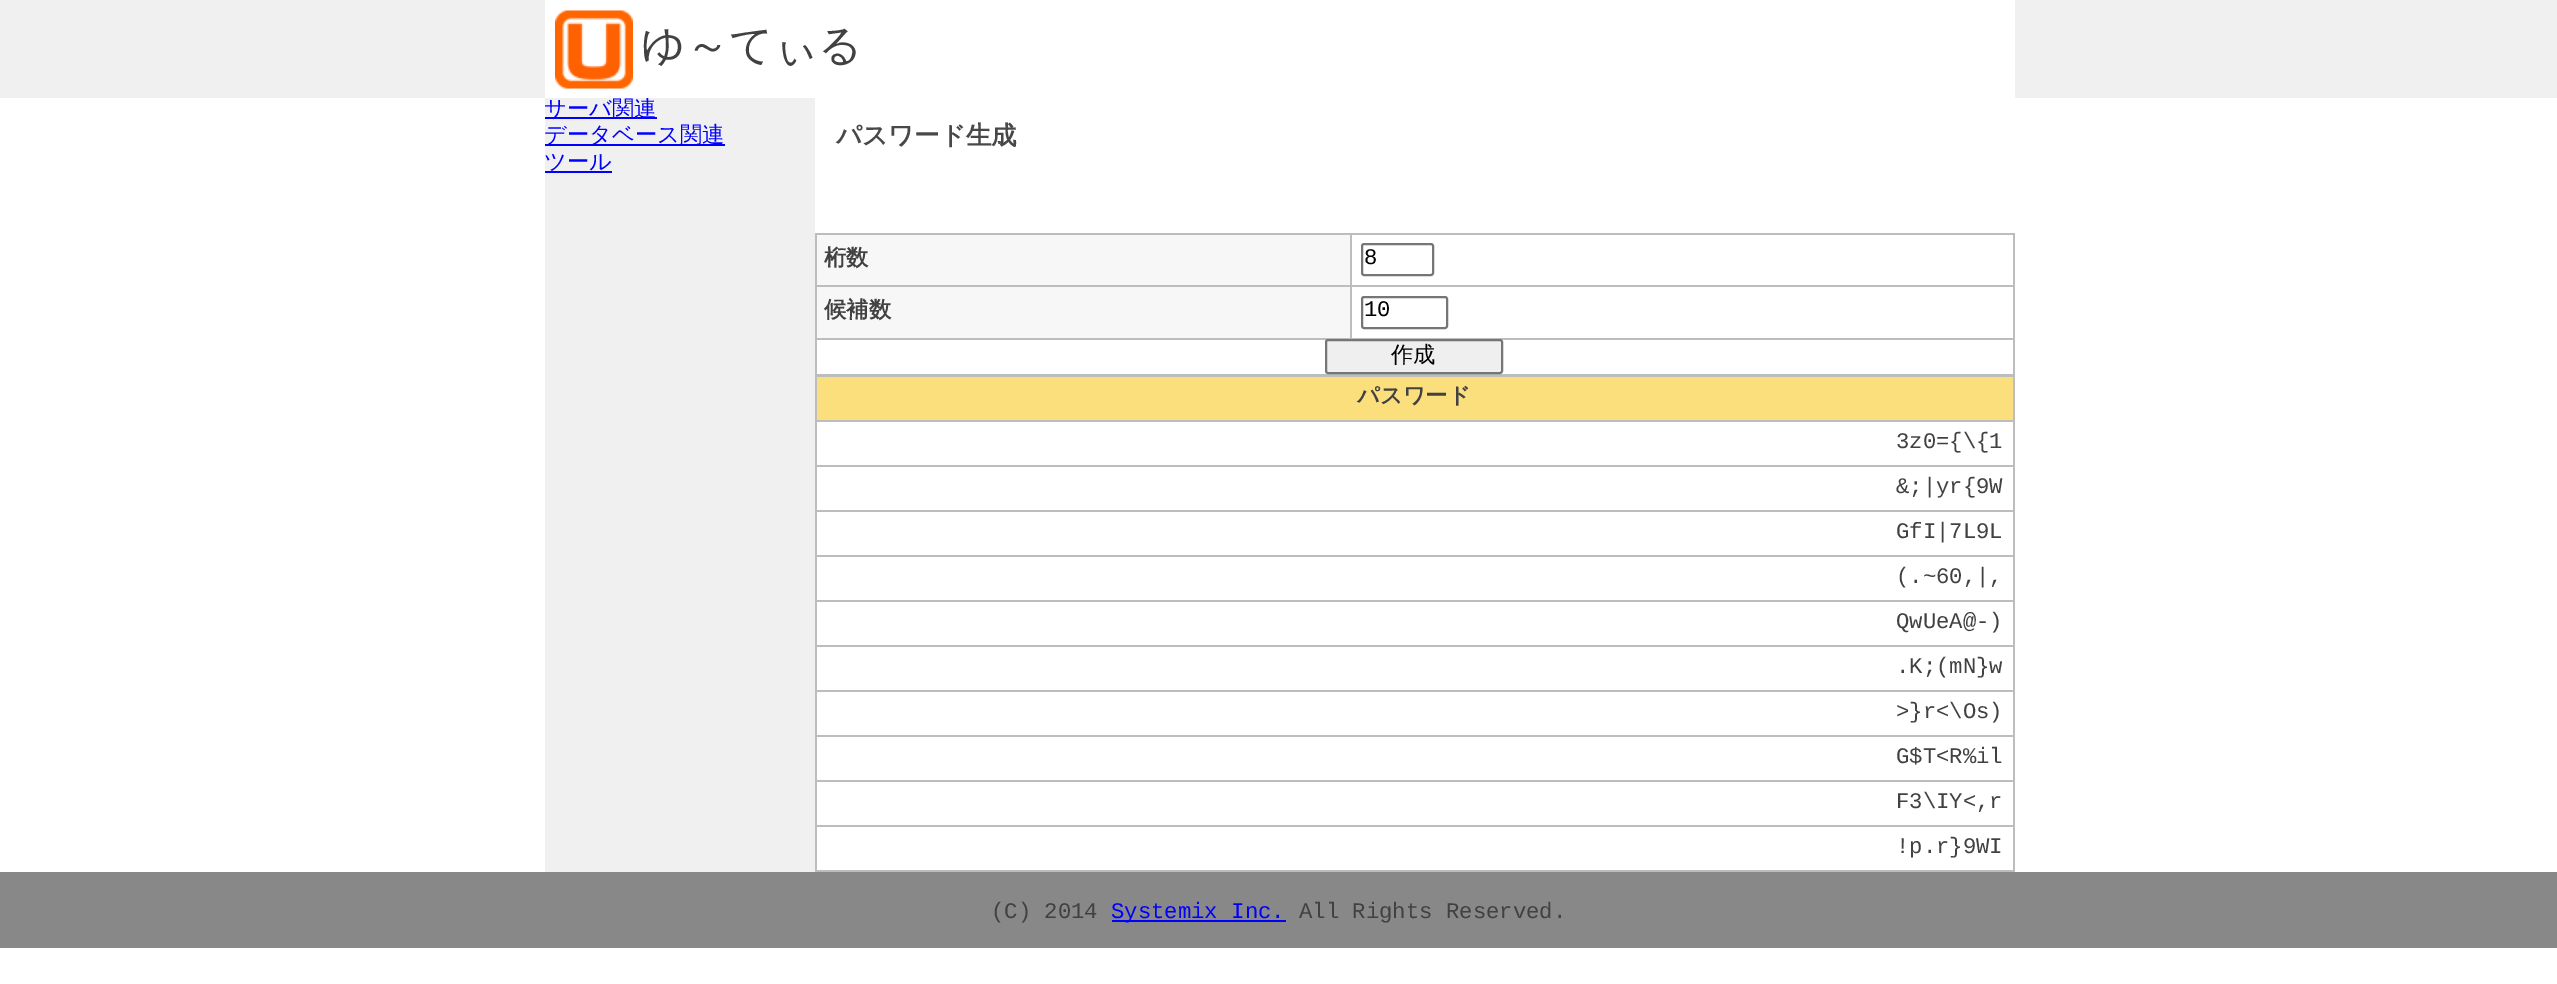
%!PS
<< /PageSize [2557 984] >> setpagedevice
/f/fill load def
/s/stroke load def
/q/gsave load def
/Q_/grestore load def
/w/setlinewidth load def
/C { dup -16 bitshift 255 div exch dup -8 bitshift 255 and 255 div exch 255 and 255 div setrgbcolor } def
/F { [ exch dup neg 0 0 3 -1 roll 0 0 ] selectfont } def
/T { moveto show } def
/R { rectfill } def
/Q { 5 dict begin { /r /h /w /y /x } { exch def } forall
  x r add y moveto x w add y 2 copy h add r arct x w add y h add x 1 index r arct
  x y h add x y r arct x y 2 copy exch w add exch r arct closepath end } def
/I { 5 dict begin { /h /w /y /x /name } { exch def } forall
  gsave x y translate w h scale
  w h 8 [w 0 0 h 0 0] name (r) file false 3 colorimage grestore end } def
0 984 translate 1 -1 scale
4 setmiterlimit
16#FFFFFF C
0 0 2557 984 R
16#F0F0F0 C
545 98 270 774 R
16#0000FF C
545 117 112 2 R
/WenQuanYiZenHei-Medium 22.25 F
(サーバ関連) 544 116 T
16#F0F0F0 C
0 0 2557 98 R
16#FFFFFF C
545 0 1470 98 R
(1.rgb) 555 10 78 79 I
/WenQuanYiZenHei-Medium 43.5 F
16#414141 C
(ゆ～てぃる) 641 60 T
16#0000FF C
545 144 180 2 R
/WenQuanYiZenHei-Medium 22.25 F
(データベース関連) 544 142 T
(ツール) 544 169 T
545 171 67 2 R
/WenQuanYiZenHei-Bold 25.5 F
16#484848 C
(パスワード生成) 836 144 T
16#BDBDBD C
815 233 1200 2 R
2013 233 2 142 R
815 374 1200 3 R
815 233 2 142 R
16#F7F7F7 C
817 235 533 50 R
16#BDBDBD C
1350 338 665 2 R
1350 285 2 54 R
1350 285 665 2 R
1350 233 2 54 R
815 285 537 2 R
/WenQuanYiZenHei-Bold 22.25 F
16#414141 C
(桁数) 824 265 T
16#767676 C
2 w
1362 244 71 31 2 Q s
/LiberationMono-Regular 22.25 F
16#000000 C
(8) 1364 264 T
16#F7F7F7 C
817 287 533 51 R
16#BDBDBD C
815 338 537 2 R
/WenQuanYiZenHei-Bold 22.25 F
16#414141 C
(候補数) 824 317 T
16#767676 C
1362 297 85 31 2 Q s
/LiberationMono-Regular 22.25 F
16#000000 C
(10) 1364 316 T
16#EFEFEF C
1326 340 176 33 2 Q q f Q_
16#767676 C
s
/WenQuanYiZenHei-Medium 22.25 F
16#000000 C
(作成) 1391 362 T
16#FBDF7C C
817 377 1196 43 R
/WenQuanYiZenHei-Bold 22.25 F
16#414141 C
(パスワード) 1357 403 T
16#BDBDBD C
815 420 1200 2 R
815 465 1200 2 R
815 510 1200 2 R
815 555 1200 2 R
815 600 1200 2 R
815 645 1200 2 R
815 690 1200 2 R
815 735 1200 2 R
815 780 1200 2 R
815 825 1200 2 R
2013 825 2 47 R
2013 780 2 47 R
2013 735 2 47 R
2013 690 2 47 R
2013 645 2 47 R
2013 600 2 47 R
2013 555 2 47 R
2013 510 2 47 R
2013 465 2 47 R
2013 375 2 92 R
815 870 1200 2 R
815 825 2 47 R
815 780 2 47 R
815 735 2 47 R
815 690 2 47 R
815 645 2 47 R
815 600 2 47 R
815 555 2 47 R
815 510 2 47 R
815 465 2 47 R
815 375 2 92 R
/LiberationMono-Regular 22.25 F
16#414141 C
(3z0={\\{1) 1896 448 T
(&;|yr{9W) 1896 493 T
(GfI|7L9L) 1896 538 T
(\(.~60,|,) 1896 583 T
(QwUeA@-\)) 1896 628 T
(.K;\(mN}w) 1896 673 T
(>}r<\\Os\)) 1896 718 T
(G$T<R%il) 1896 763 T
(F3\\IY<,r) 1896 808 T
(!p.r}9WI) 1896 853 T
16#888888 C
0 872 2557 76 R
16#414141 C
(\(C\) 2014) 991 918 T
16#0000FF C
1112 920 174 2 R
(Systemix Inc.) 1111 918 T
16#414141 C
(All Rights Reserved.) 1299 918 T
showpage
